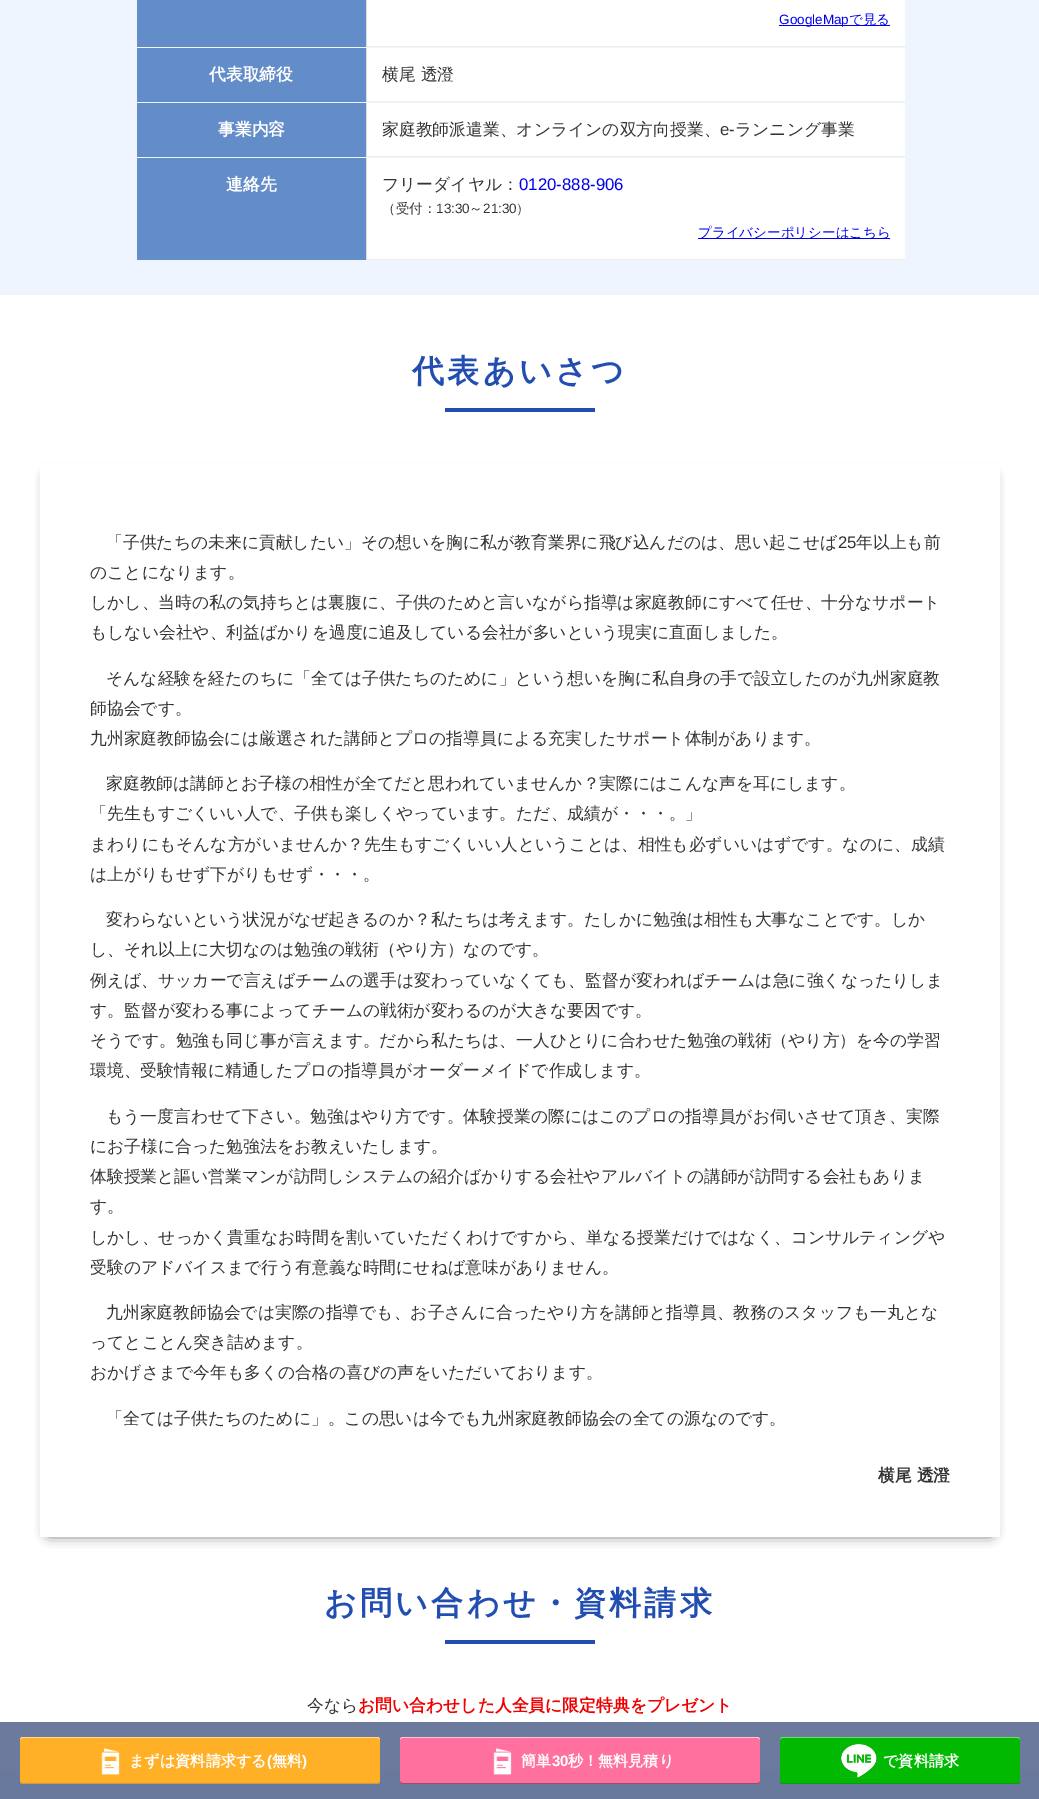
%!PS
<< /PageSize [1039 1799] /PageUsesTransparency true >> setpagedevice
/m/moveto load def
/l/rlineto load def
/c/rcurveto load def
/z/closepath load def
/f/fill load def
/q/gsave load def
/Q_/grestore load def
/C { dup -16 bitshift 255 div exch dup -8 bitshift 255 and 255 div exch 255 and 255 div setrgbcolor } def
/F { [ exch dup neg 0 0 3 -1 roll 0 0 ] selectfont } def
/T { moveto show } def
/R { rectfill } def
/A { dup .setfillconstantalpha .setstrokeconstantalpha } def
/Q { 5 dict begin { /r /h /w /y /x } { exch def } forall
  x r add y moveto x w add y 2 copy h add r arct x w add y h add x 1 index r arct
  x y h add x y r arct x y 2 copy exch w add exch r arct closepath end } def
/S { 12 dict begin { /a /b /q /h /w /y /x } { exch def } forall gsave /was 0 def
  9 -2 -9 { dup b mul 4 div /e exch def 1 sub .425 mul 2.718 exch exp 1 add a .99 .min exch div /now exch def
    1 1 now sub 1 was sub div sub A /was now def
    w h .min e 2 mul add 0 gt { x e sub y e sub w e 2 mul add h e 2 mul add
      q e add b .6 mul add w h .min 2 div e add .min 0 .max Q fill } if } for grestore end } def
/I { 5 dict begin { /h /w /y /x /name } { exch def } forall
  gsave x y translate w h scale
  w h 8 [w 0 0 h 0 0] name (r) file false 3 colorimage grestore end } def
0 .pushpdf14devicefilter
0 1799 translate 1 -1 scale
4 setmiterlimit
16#FFFFFF C
0 0 1039 1799 R
16#EEF5FF C
0 0 1039 295 R
16#FFFFFF C
367 0 538 46 R
16#638DC8 C
137 0 229 47 R
16#DDDDDD C
366 0 1 47 R
16#EEEEEE C
367 46 538 1 R
16#0000EE C
779 25 111 1 R
/LiberationSans-Regular 13.5 F
(GoogleMap) 779 24 T
/WenQuanYiZenHei-Medium 13.5 F
(で見る) 849 24 T
16#FFFFFF C
367 48 538 53 R
16#638DC8 C
137 48 229 54 R
16#DDDDDD C
366 48 1 54 R
/WenQuanYiZenHei-Bold 16.8 F
16#FFFFFF C
(代表取締役) 209 80 T
16#EEEEEE C
367 101 538 1 R
/WenQuanYiZenHei-Medium 16.8 F
16#333333 C
(横尾 透澄) 382 80 T
16#FFFFFF C
367 103 538 53 R
16#638DC8 C
137 103 229 54 R
16#DDDDDD C
366 103 1 54 R
/WenQuanYiZenHei-Bold 16.8 F
16#FFFFFF C
(事業内容) 218 135 T
16#EEEEEE C
367 156 538 1 R
/WenQuanYiZenHei-Medium 16.8 F
16#333333 C
(家庭教師派遣業、オンラインの双方向授業、) 382 135 T
/LiberationSans-Regular 16.8 F
(e-) 720 135 T
/WenQuanYiZenHei-Medium 16.8 F
(ランニング事業) 735 135 T
16#FFFFFF C
367 158 538 101 R
16#638DC8 C
137 158 229 102 R
16#DDDDDD C
366 158 1 102 R
/WenQuanYiZenHei-Bold 16.8 F
16#FFFFFF C
(連絡先) 226 190 T
16#EEEEEE C
367 259 538 1 R
/WenQuanYiZenHei-Medium 16.8 F
16#333333 C
(フリーダイヤル：) 382 190 T
/LiberationSans-Regular 16.8 F
16#0000EE C
(0120-888-906) 519 190 T
/WenQuanYiZenHei-Medium 13.5 F
16#333333 C
(（受付：) 382 213 T
/LiberationSans-Regular 13.5 F
(13:30) 436 213 T
/WenQuanYiZenHei-Medium 13.5 F
(～) 469 213 T
/LiberationSans-Regular 13.5 F
(21:30) 483 213 T
/WenQuanYiZenHei-Medium 13.5 F
(）) 516 213 T
16#0000EE C
698 238 192 1 R
(プライバシーポリシーはこちら) 698 237 T
/WenQuanYiZenHei-Bold 32 F
16#224EB1 C
412 382 m 3.25 0 (代表あいさつ) ashow
445 408 150 4 R
q
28 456 m 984 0 l 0 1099 l -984 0 l z 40 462 m 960 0 l 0 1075 l -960 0 l z eoclip newpath
16#000000 C
49 477 942 1057 0 6.5 .75 S
Q_
16#FCFCFC C
40 462 960 1 R
/WenQuanYiZenHei-Medium 16.8 F
16#333333 C
(「子供たちの未来に貢献したい」その想いを胸に私が教育業界に飛び込んだのは、思い起こせば) 106 548 T
/LiberationSans-Regular 16.8 F
(25) 838 548 T
/WenQuanYiZenHei-Medium 16.8 F
(年以上も前) 856 548 T
(のことになります。) 90 578 T
(しかし、当時の私の気持ちとは裏腹に、子供のためと言いながら指導は家庭教師にすべて任せ、十分なサポート) 90 608 T
(もしない会社や、利益ばかりを過度に追及している会社が多いという現実に直面しました。) 90 638 T
(そんな経験を経たのちに「全ては子供たちのために」という想いを胸に私自身の手で設立したのが九州家庭教) 106 684 T
(師協会です。) 90 714 T
(九州家庭教師協会には厳選された講師とプロの指導員による充実したサポート体制があります。) 90 744 T
(家庭教師は講師とお子様の相性が全てだと思われていませんか？実際にはこんな声を耳にします。) 106 789 T
(「先生もすごくいい人で、子供も楽しくやっています。ただ、成績が・・・。」) 90 819 T
(まわりにもそんな方がいませんか？先生もすごくいい人ということは、相性も必ずいいはずです。なのに、成績) 90 850 T
(は上がりもせず下がりもせず・・・。) 90 880 T
(変わらないという状況がなぜ起きるのか？私たちは考えます。たしかに勉強は相性も大事なことです。しか) 106 925 T
(し、それ以上に大切なのは勉強の戦術（やり方）なのです。) 90 955 T
(例えば、サッカーで言えばチームの選手は変わっていなくても、監督が変わればチームは急に強くなったりしま) 90 986 T
(す。監督が変わる事によってチームの戦術が変わるのが大きな要因です。) 90 1016 T
(そうです。勉強も同じ事が言えます。だから私たちは、一人ひとりに合わせた勉強の戦術（やり方）を今の学習) 90 1046 T
(環境、受験情報に精通したプロの指導員がオーダーメイドで作成します。) 90 1076 T
(もう一度言わせて下さい。勉強はやり方です。体験授業の際にはこのプロの指導員がお伺いさせて頂き、実際) 106 1122 T
(にお子様に合った勉強法をお教えいたします。) 90 1152 T
(体験授業と謳い営業マンが訪問しシステムの紹介ばかりする会社やアルバイトの講師が訪問する会社もありま) 90 1182 T
(す。) 90 1212 T
(しかし、せっかく貴重なお時間を割いていただくわけですから、単なる授業だけではなく、コンサルティングや) 90 1243 T
(受験のアドバイスまで行う有意義な時間にせねば意味がありません。) 90 1273 T
(九州家庭教師協会では実際の指導でも、お子さんに合ったやり方を講師と指導員、教務のスタッフも一丸とな) 106 1318 T
(ってとことん突き詰めます。) 90 1348 T
(おかげさまで今年も多くの合格の喜びの声をいただいております。) 90 1378 T
(「全ては子供たちのために」。この思いは今でも九州家庭教師協会の全ての源なのです。) 106 1424 T
/WenQuanYiZenHei-Bold 16.8 F
(横尾 透澄) 878 1481 T
/WenQuanYiZenHei-Bold 32 F
16#224EB1 C
324 1614 m 3.25 0 (お問い合わせ・資料請求) ashow
445 1640 150 4 R
/WenQuanYiZenHei-Medium 16.8 F
16#333333 C
(今なら) 307 1711 T
/WenQuanYiZenHei-Bold 16.8 F
16#EE0000 C
(お問い合わせした人全員に限定特典をプレゼント) 358 1711 T
16#FAFBFF C
0 1770 1039 29 R
0.7 A
16#2C4274 C
0 1722 1039 77 R
1 A
16#FFB026 C
20 1737 360 47 3 Q f
16#FFD998 C
23 1737 m -2 0 -3 1 -3 3 c 0 -1 1 -2 3 -2 c 354 0 l 2 0 3 1 3 2 c 0 -2 -1 -3 -3 -3 c z f
16#CB9B46 C
377 1784 m 2 0 3 -1 3 -3 c 0 1 -1 2 -3 2 c -354 0 l -2 0 -3 -1 -3 -2 c 0 2 1 3 3 3 c z f
(1.rgb) 96 1743 33 32 I
/WenQuanYiZenHei-Bold 15.1 F
16#FFFFFF C
(まずは資料請求する) 129 1766 T
/LiberationSans-Bold 15.1 F
(\() 267 1766 T
/WenQuanYiZenHei-Bold 15.1 F
(無料) 272 1766 T
/LiberationSans-Bold 15.1 F
(\)) 302 1766 T
16#FF709E C
400 1737 360 47 3 Q f
16#FFC5D7 C
403 1737 m -2 0 -3 1 -3 3 c 0 -1 1 -2 3 -2 c 354 0 l 2 0 3 1 3 2 c 0 -2 -1 -3 -3 -3 c z f
16#A04C66 C
757 1784 m 2 0 3 -1 3 -3 c 0 1 -1 2 -3 2 c -354 0 l -2 0 -3 -1 -3 -2 c 0 2 1 3 3 3 c z f
(2.rgb) 489 1743 32 32 I
/WenQuanYiZenHei-Bold 15.1 F
16#FFFFFF C
(簡単) 521 1766 T
/LiberationSans-Bold 15.1 F
(30) 552 1766 T
/WenQuanYiZenHei-Bold 15.1 F
(秒！無料見積り) 568 1766 T
16#02B902 C
780 1737 240 47 3 Q f
16#69DF69 C
783 1737 m -2 0 -3 1 -3 3 c 0 -1 1 -2 3 -2 c 234 0 l 2 0 3 1 3 2 c 0 -2 -1 -3 -3 -3 c z f
16#1B8F1B C
1017 1784 m 2 0 3 -1 3 -3 c 0 1 -1 2 -3 2 c -234 0 l -2 0 -3 -1 -3 -2 c 0 2 l 2 1 l z f
(3.rgb) 840 1743 38 35 I
16#FFFFFF C
(で資料請求) 883 1766 T
.poppdf14devicefilter showpage
